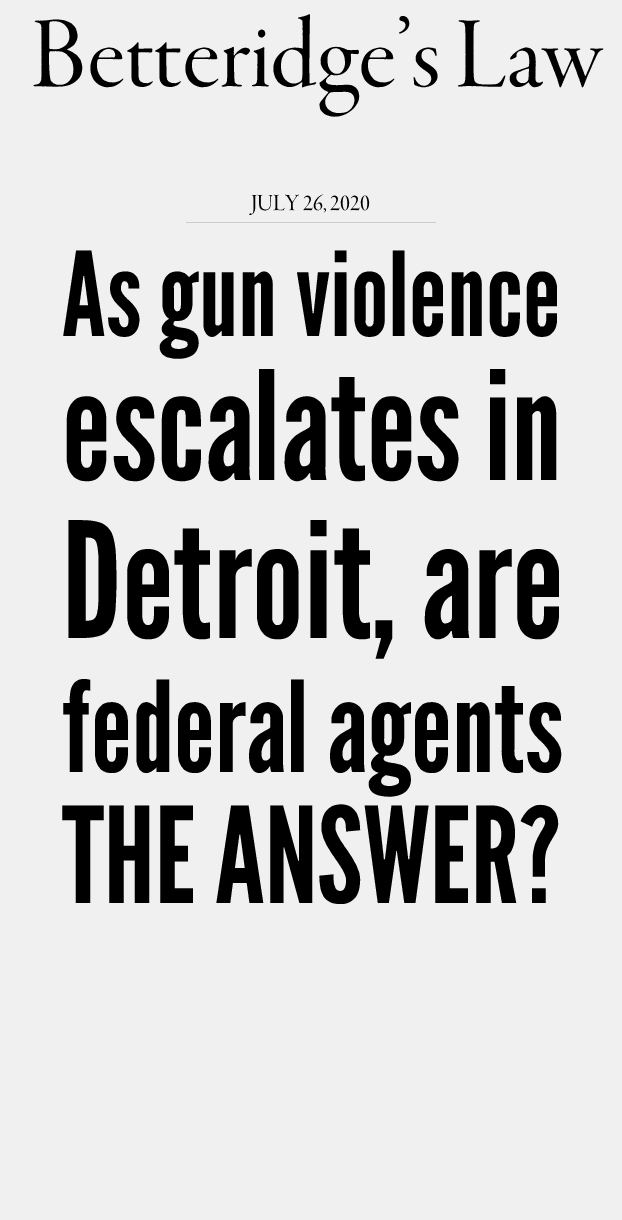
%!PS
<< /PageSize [622 1220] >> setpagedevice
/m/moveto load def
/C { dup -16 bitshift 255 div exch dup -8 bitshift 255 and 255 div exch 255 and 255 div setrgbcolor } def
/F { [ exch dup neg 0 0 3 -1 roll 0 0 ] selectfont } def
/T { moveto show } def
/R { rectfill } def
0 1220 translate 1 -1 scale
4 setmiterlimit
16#F0F0F0 C
0 0 622 1220 R
/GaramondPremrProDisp-Regular 104.25 F
16#000000 C
31 86 m -1 0 32 (Betteridge’s Law) widthshow
16#CCCCCC C
186 222 250 1 R
/GaramondPremrProDisp-Regular 24 F
16#000000 C
(JULY 26, 2020) 251 210 T
/LeagueGothic-Regular 116.5 F
(As gun violence) 62 336 T
/LeagueGothic-Regular 151 F
62 480 m -1 0 32 (escalates in) widthshow
/LeagueGothic-Regular 160.5 F
(Detroit, are) 62 638 T
/LeagueGothic-Regular 126 F
62 772 m -1 0 32 (federal agents) widthshow
/LeagueGothic-Regular 133 F
62 903 m -1 0 32 (THE ANSWER?) widthshow
showpage
